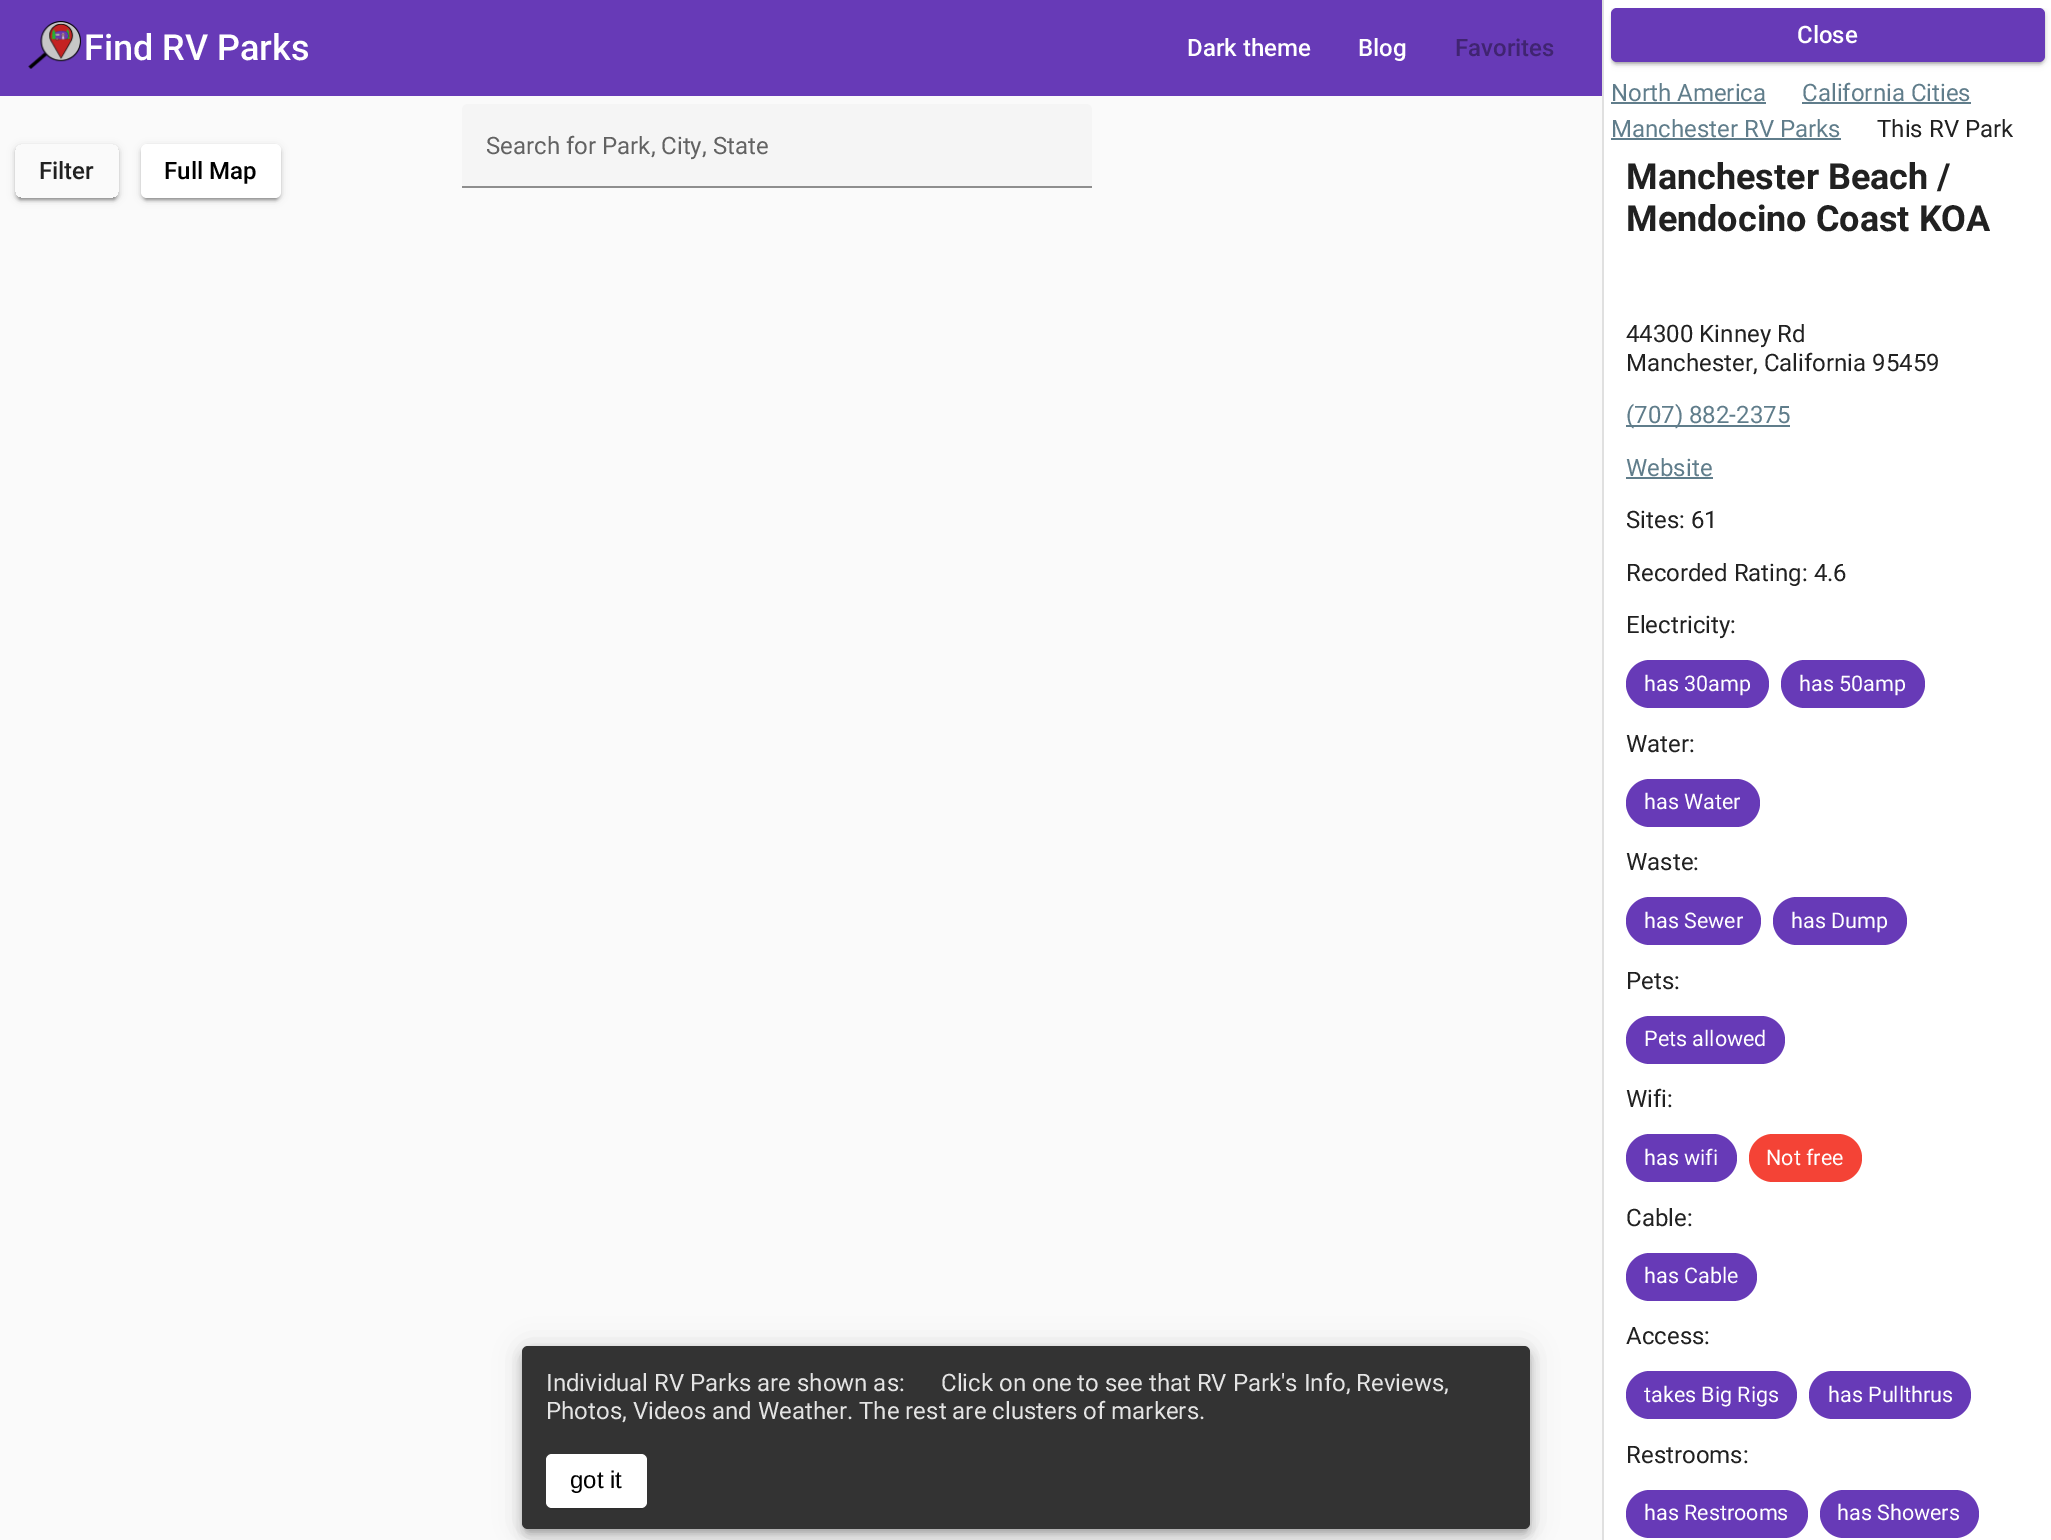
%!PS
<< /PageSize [2051 1540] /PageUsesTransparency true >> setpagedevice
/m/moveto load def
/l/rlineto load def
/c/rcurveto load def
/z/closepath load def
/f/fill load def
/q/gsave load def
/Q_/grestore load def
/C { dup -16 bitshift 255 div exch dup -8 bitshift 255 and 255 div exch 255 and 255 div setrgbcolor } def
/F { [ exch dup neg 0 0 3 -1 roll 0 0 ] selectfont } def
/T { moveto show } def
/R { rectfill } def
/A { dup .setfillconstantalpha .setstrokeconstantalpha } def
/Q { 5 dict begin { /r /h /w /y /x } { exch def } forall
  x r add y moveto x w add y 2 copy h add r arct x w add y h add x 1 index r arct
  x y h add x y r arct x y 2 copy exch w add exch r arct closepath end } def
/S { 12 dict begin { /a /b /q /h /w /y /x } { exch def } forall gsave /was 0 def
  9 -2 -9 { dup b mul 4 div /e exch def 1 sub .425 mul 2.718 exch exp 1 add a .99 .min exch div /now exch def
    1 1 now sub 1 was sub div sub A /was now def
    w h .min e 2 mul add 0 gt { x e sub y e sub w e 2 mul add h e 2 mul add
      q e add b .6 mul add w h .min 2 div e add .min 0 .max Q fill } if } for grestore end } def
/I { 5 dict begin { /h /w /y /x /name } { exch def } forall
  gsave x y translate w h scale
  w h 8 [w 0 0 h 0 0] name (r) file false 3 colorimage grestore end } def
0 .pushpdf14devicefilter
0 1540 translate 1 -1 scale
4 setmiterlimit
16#FAFAFA C
0 0 2051 1540 R
16#673AB7 C
0 0 1602 96 R
(1.rgb) 28 21 53 48 I
/Roboto-Medium 36 F
16#FFFFFF C
(Find RV Parks) 84 60 T
/Roboto-Medium 24 F
(Dark theme) 1187 56 T
(Blog) 1358 56 T
16#402471 C
(Favorites) 1455 56 T
16#F5F5F5 C
468 104 m 618 0 l 3.5 0 6 2.5 6 6 c 0 78 l -630 0 l 0 -78 l 0 -3.5 2.5 -6 6 -6 c z f
/Roboto-Regular 24 F
16#626262 C
(Search for Park, City, State) 486 154 T
16#8E8E8E C
462 186 630 2 R
q
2 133 m 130 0 l 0 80 l -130 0 l z 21 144 m 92 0 l 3.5 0 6 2.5 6 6 c 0 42 l 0 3.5 -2.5 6 -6 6 c -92 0 l -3.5 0 -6 -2.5 -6 -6 c 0 -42 l 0 -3.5 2.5 -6 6 -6 c z eoclip newpath
16#000000 C
15 146 104 54 6 4 .12 S
Q_
q
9 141 m 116 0 l 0 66 l -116 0 l z 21 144 m 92 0 l 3.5 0 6 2.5 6 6 c 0 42 l 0 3.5 -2.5 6 -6 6 c -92 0 l -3.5 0 -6 -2.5 -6 -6 c 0 -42 l 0 -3.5 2.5 -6 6 -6 c z eoclip newpath
16#000000 C
15 147 104 54 6 1.5 .14 S
Q_
q
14 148 m 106 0 l 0 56 l -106 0 l z 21 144 m 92 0 l 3.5 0 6 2.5 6 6 c 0 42 l 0 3.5 -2.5 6 -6 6 c -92 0 l -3.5 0 -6 -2.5 -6 -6 c 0 -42 l 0 -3.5 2.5 -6 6 -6 c z eoclip newpath
16#000000 C
18 152 98 48 3 1 .2 S
Q_
/Roboto-Medium 24 F
16#212121 C
(Filter) 39 179 T
16#000000 C
141 146 140 54 6 4 .12 S
141 147 140 54 6 1.5 .14 S
144 152 134 48 3 1 .2 S
16#FFFFFF C
141 144 140 54 6 Q f
16#000000 C
(Full Map) 164 179 T
16#FFFFFF C
1604 0 447 1540 R
16#E0E0E0 C
1602 0 2 1540 R
q
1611 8 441 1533 rectclip
16#000000 C
1611 9 434 54 6 4 .12 S
Q_
q
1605 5 m 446 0 l 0 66 l -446 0 l z 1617 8 m 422 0 l 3.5 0 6 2.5 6 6 c 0 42 l 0 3.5 -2.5 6 -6 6 c -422 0 l -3.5 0 -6 -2.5 -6 -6 c 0 -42 l 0 -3.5 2.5 -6 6 -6 c z eoclip newpath
16#000000 C
1611 11 434 54 6 1.5 .14 S
Q_
16#000000 C
1614 15 428 48 3 1 .2 S
16#673AB7 C
1611 8 434 54 6 Q f
16#FFFFFF C
(Close) 1797 43 T
/Roboto-Regular 24 F
16#607D8B C
(North America) 1611 101 T
1611 102 155 2 R
(California Cities) 1802 101 T
1802 102 169 2 R
(Manchester RV Parks) 1611 137 T
1611 138 230 2 R
16#212121 C
(This RV Park) 1877 137 T
/Roboto-Bold 36 F
(Manchester Beach /) 1626 189 T
(Mendocino Coast KOA) 1626 231 T
/Roboto-Regular 24 F
(44300 Kinney Rd) 1626 342 T
(Manchester, California 95459) 1626 371 T
16#607D8B C
1626 425 164 2 R
(\(707\) 882-2375) 1626 423 T
(Website) 1626 476 T
1626 477 87 2 R
16#212121 C
(Sites: 61) 1626 528 T
(Recorded Rating: 4.6) 1626 581 T
(Electricity:) 1626 633 T
16#673AB7 C
1626 660 143 48 24 Q f
/Roboto-Regular 21.5 F
16#FFFFFF C
(has 30amp) 1644 691 T
16#673AB7 C
1781 660 144 48 24 Q f
16#FFFFFF C
(has 50amp) 1799 691 T
/Roboto-Regular 24 F
16#212121 C
(Water:) 1626 752 T
16#673AB7 C
1626 779 134 48 24 Q f
/Roboto-Regular 21.5 F
16#FFFFFF C
(has Water) 1644 809 T
/Roboto-Regular 24 F
16#212121 C
(Waste:) 1626 870 T
16#673AB7 C
1626 897 135 48 24 Q f
/Roboto-Regular 21.5 F
16#FFFFFF C
(has Sewer) 1644 928 T
16#673AB7 C
1773 897 134 48 24 Q f
16#FFFFFF C
(has Dump) 1791 928 T
/Roboto-Regular 24 F
16#212121 C
(Pets:) 1626 989 T
16#673AB7 C
1626 1016 159 48 24 Q f
/Roboto-Regular 21.5 F
16#FFFFFF C
(Pets allowed) 1644 1046 T
/Roboto-Regular 24 F
16#212121 C
(Wifi:) 1626 1107 T
16#673AB7 C
1626 1134 111 48 24 Q f
/Roboto-Regular 21.5 F
16#FFFFFF C
(has wifi) 1644 1165 T
16#F44336 C
1749 1134 113 48 24 Q f
16#FFFFFF C
(Not free) 1766 1165 T
/Roboto-Regular 24 F
16#212121 C
(Cable:) 1626 1226 T
16#673AB7 C
1626 1253 131 48 24 Q f
/Roboto-Regular 21.5 F
16#FFFFFF C
(has Cable) 1644 1283 T
/Roboto-Regular 24 F
16#212121 C
(Access:) 1626 1344 T
16#673AB7 C
1626 1371 171 48 24 Q f
/Roboto-Regular 21.5 F
16#FFFFFF C
(takes Big Rigs) 1644 1402 T
16#673AB7 C
1809 1371 162 48 24 Q f
16#FFFFFF C
(has Pullthrus) 1828 1402 T
/Roboto-Regular 24 F
16#212121 C
(Restrooms:) 1626 1463 T
16#673AB7 C
1626 1490 182 48 24 Q f
/Roboto-Regular 21.5 F
16#FFFFFF C
(has Restrooms) 1644 1520 T
16#673AB7 C
1820 1490 159 48 24 Q f
16#FFFFFF C
(has Showers) 1837 1520 T
16#000000 C
522 1347 1008 183 6 13.5 .12 S
522 1355 1008 183 6 7.5 .14 S
524 1352 1005 180 5 4 .2 S
16#333333 C
522 1346 1008 183 6 Q f
/Roboto-Regular 24 F
16#E4E4E4 C
(Individual RV Parks are shown as:) 546 1391 T
(Click on one to see that RV Park's Info, Reviews,) 941 1391 T
(Photos, Videos and Weather. The rest are clusters of markers.) 546 1419 T
16#000000 C
549 1461 95 48 3 1 .2 S
16#FFFFFF C
546 1454 101 54 6 Q f
/LiberationSans-Regular 24 F
16#000000 C
(got it) 570 1488 T
.poppdf14devicefilter showpage
